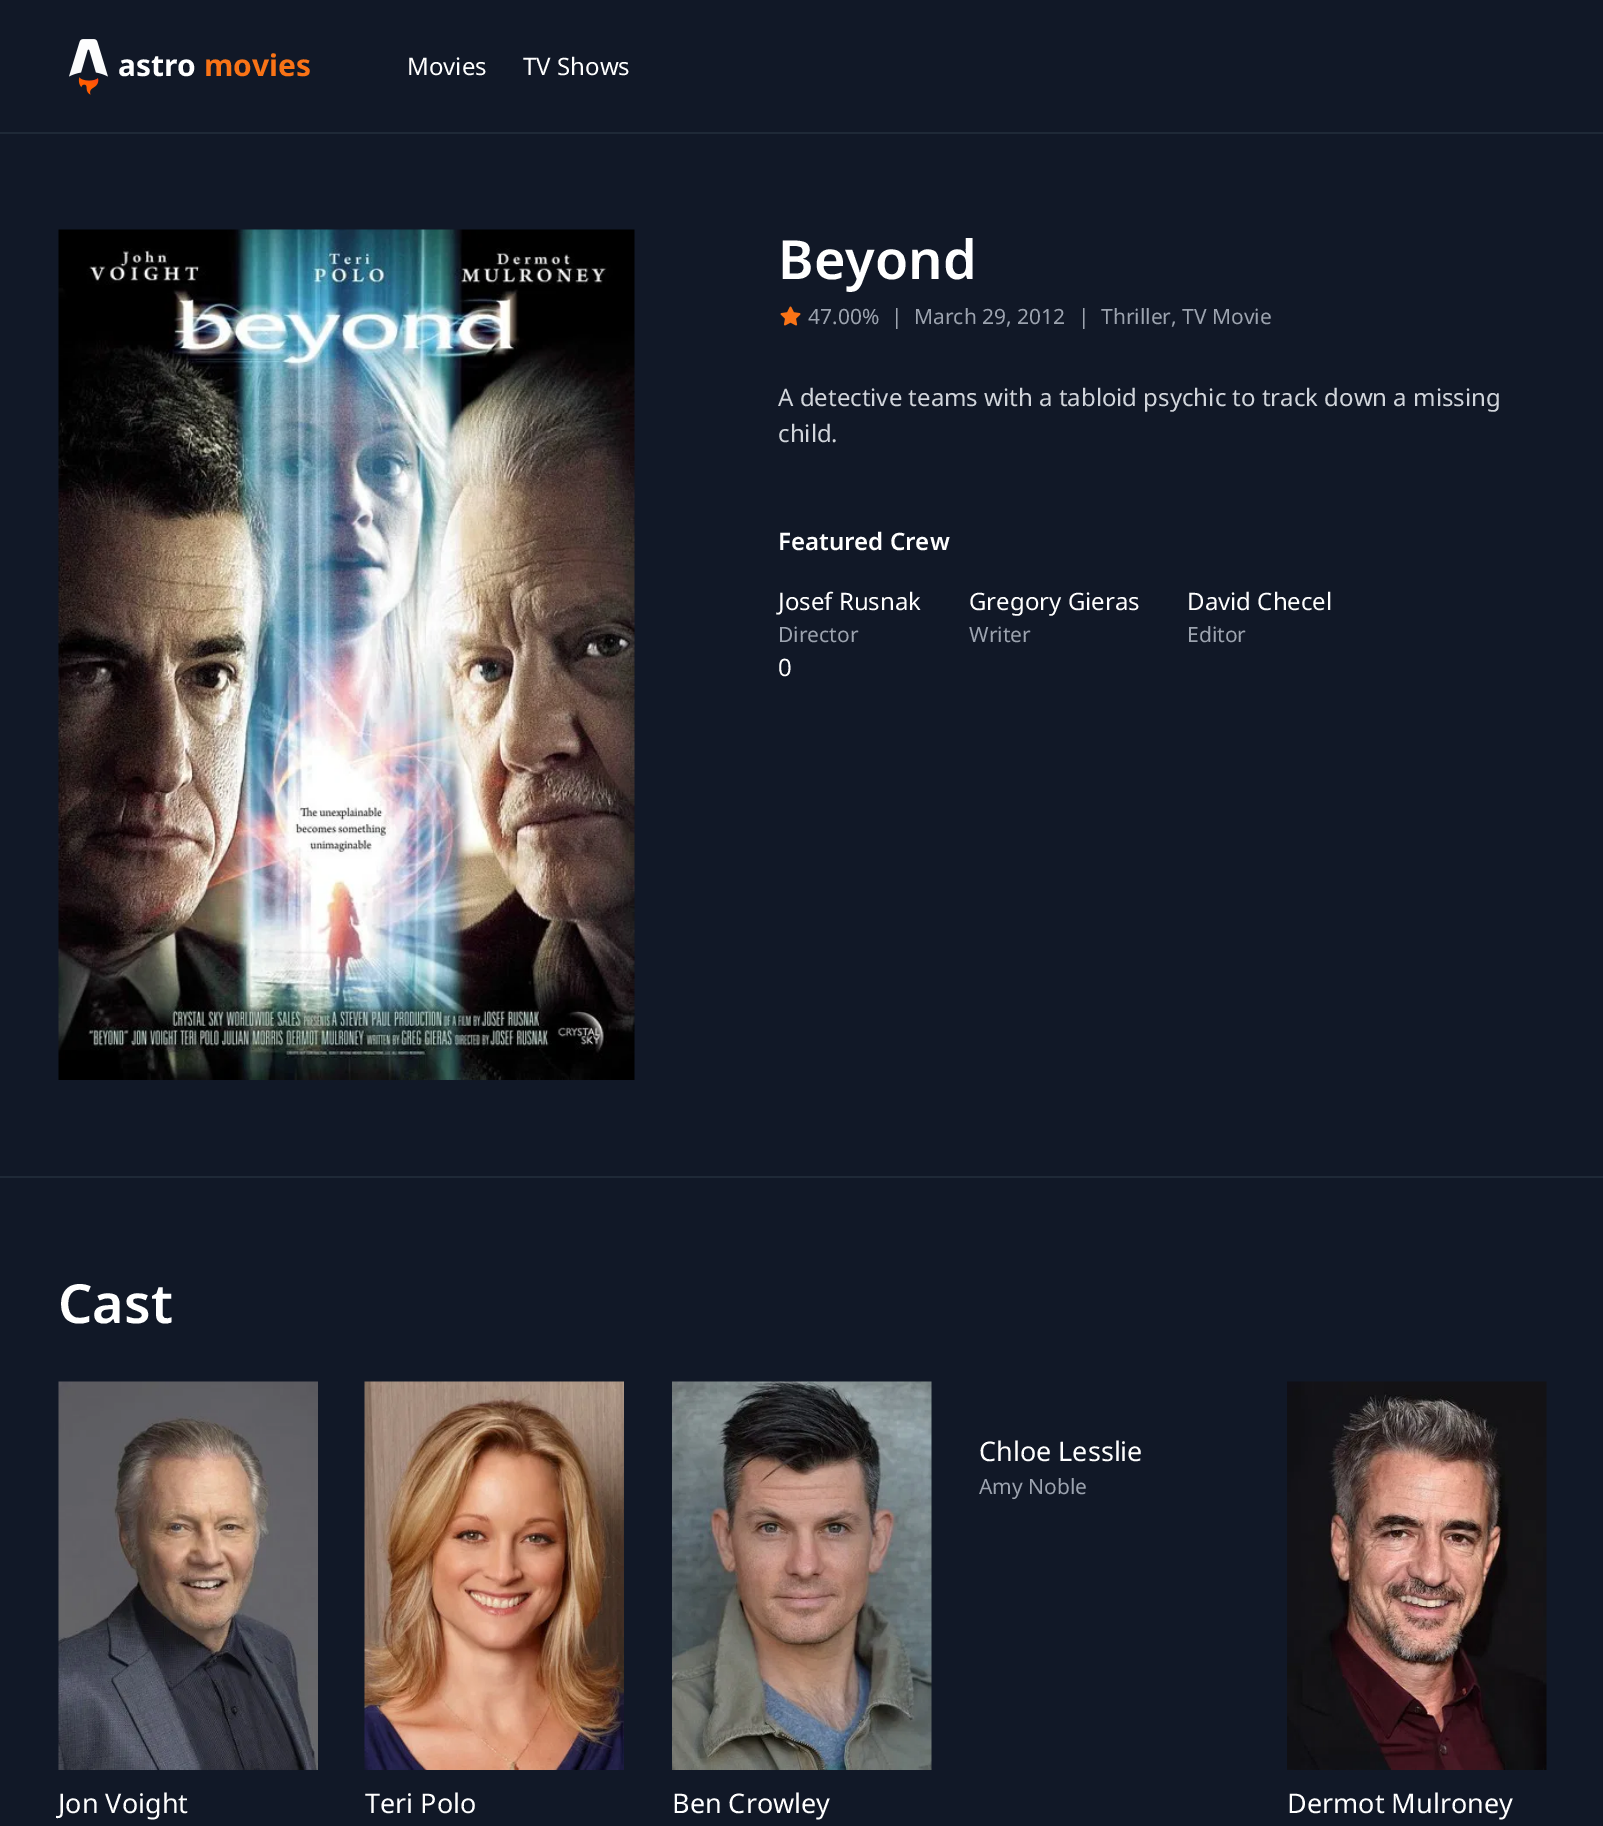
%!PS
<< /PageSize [1603 1826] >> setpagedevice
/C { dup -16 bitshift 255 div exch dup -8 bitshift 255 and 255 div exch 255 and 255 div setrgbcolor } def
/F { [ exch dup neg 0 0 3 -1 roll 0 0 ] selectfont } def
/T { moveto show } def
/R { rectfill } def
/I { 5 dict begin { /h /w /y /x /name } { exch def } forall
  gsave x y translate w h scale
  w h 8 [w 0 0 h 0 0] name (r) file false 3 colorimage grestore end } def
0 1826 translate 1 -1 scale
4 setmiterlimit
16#111827 C
0 0 1603 1826 R
16#1F2937 C
0 132 1603 2 R
(1.rgb) 69 39 39 56 I
/NotoSans-Bold 30 F
16#FFFFFF C
(astro) 118 76 T
16#F97316 C
(movies) 204 76 T
/NotoSans-Regular 24 F
16#FFFFFF C
(Movies) 407 75 T
(TV Shows) 523 75 T
16#1F2937 C
0 1176 1603 2 R
(2.rgb) 58 229 577 851 I
/NotoSans-SemiBold 54 F
16#FFFFFF C
(Beyond) 778 279 T
(3.rgb) 780 306 21 20 I
/NotoSans-Regular 21 F
16#9CA3AF C
(47.00%) 808 324 T
(|) 891 324 T
(March 29, 2012) 914 324 T
(|) 1078 324 T
(Thriller, TV Movie) 1101 324 T
/NotoSans-Regular 24 F
16#D1D5DB C
(A detective teams with a tabloid psychic to track down a missing) 778 406 T
(child.) 778 442 T
/NotoSans-SemiBold 24 F
16#FFFFFF C
(Featured Crew) 778 550 T
/NotoSans-Regular 24 F
(Josef Rusnak) 778 610 T
/NotoSans-Regular 21 F
16#9CA3AF C
(Director) 778 642 T
/NotoSans-Regular 24 F
16#FFFFFF C
(Gregory Gieras) 969 610 T
/NotoSans-Regular 21 F
16#9CA3AF C
(Writer) 969 642 T
/NotoSans-Regular 24 F
16#FFFFFF C
(David Checel) 1187 610 T
/NotoSans-Regular 21 F
16#9CA3AF C
(Editor) 1187 642 T
/NotoSans-Regular 24 F
16#FFFFFF C
(0) 778 676 T
/NotoSans-SemiBold 54 F
(Cast) 58 1323 T
/NotoSans-Regular 27 F
(Chloe Lesslie) 979 1461 T
/NotoSans-Regular 21 F
16#9CA3AF C
(Amy Noble) 979 1494 T
(4.rgb) 58 1381 260 389 I
/NotoSans-Regular 27 F
16#FFFFFF C
(Jon Voight) 58 1813 T
(5.rgb) 364 1381 260 389 I
(Teri Polo) 365 1813 T
(6.rgb) 672 1381 260 389 I
(Ben Crowley) 672 1813 T
(7.rgb) 1287 1381 260 389 I
(Dermot Mulroney) 1287 1813 T
showpage
